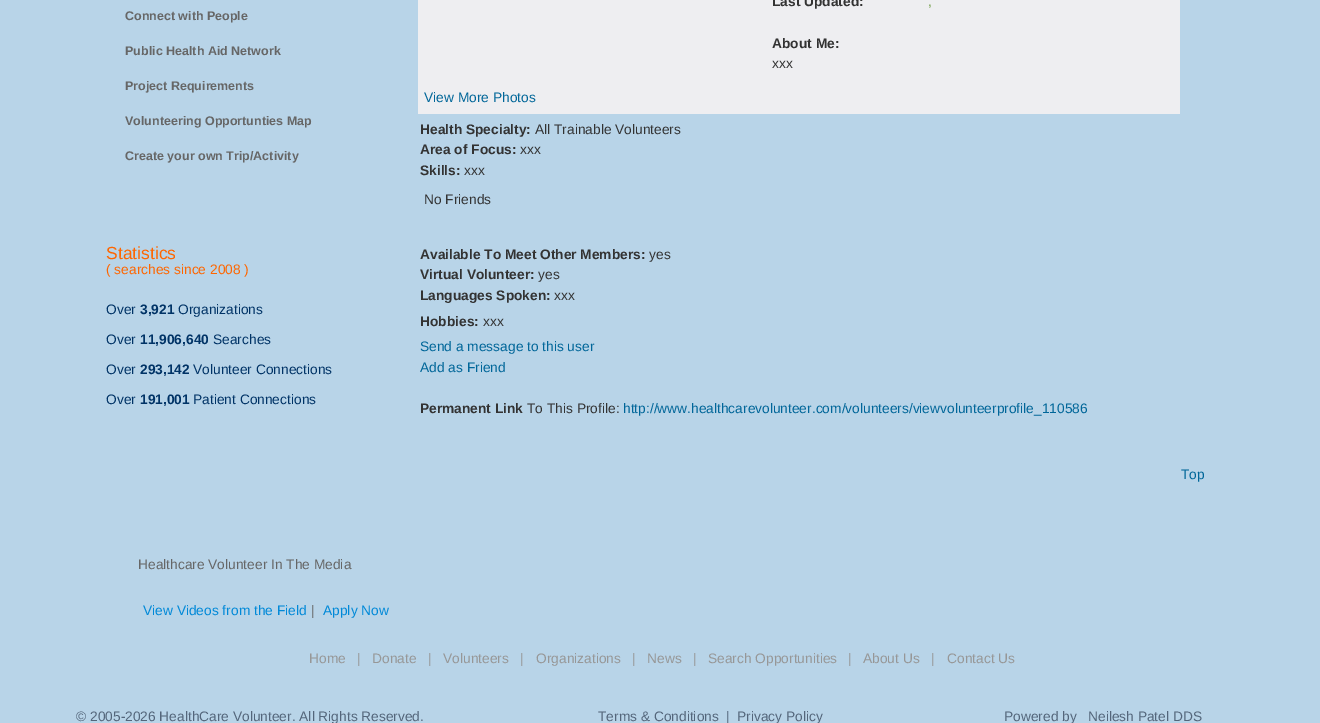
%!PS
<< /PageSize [1320 723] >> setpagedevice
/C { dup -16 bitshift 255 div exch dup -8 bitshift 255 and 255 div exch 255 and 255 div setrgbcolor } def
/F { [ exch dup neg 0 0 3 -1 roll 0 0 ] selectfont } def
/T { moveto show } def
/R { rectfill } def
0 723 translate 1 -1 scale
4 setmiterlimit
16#B8D4E8 C
0 0 1320 723 R
/LiberationSans-Bold 12.5 F
16#666666 C
(Connect with People) 125 20 T
(Public Health Aid Network) 125 55 T
(Project Requirements) 125 90 T
(Volunteering Opportunties Map) 125 125 T
(Create your own Trip/Activity) 125 160 T
/LiberationSans-Regular 17.5 F
16#FF6600 C
(Statistics) 106 259 T
/LiberationSans-Regular 13.75 F
(\( searches since 2008 \)) 106 274 T
16#003366 C
(Over) 106 314 T
/LiberationSans-Bold 13.75 F
(3,921) 140 314 T
/LiberationSans-Regular 13.75 F
(Organizations) 178 314 T
(Over) 106 344 T
/LiberationSans-Bold 13.75 F
(11,906,640) 140 344 T
/LiberationSans-Regular 13.75 F
(Searches) 213 344 T
(Over) 106 374 T
/LiberationSans-Bold 13.75 F
(293,142) 140 374 T
/LiberationSans-Regular 13.75 F
(Volunteer Connections) 193 374 T
(Over) 106 404 T
/LiberationSans-Bold 13.75 F
(191,001) 140 404 T
/LiberationSans-Regular 13.75 F
(Patient Connections) 193 404 T
16#EEEEF1 C
418 0 762 114 R
/LiberationSans-Bold 13.75 F
16#333333 C
(Last Updated:) 772 6 T
/LiberationSans-Regular 13.75 F
16#6F9C45 C
(,) 928 6 T
/LiberationSans-Bold 13.75 F
16#333333 C
(About Me:) 772 48 T
/LiberationSans-Regular 13.75 F
(xxx) 772 68 T
16#006699 C
(View More Photos) 424 102 T
/LiberationSans-Bold 13.75 F
16#333333 C
(Health Specialty:) 420 134 T
/LiberationSans-Regular 13.75 F
(All Trainable Volunteers) 535 134 T
/LiberationSans-Bold 13.75 F
(Area of Focus:) 420 154 T
/LiberationSans-Regular 13.75 F
(xxx) 520 154 T
/LiberationSans-Bold 13.75 F
(Skills:) 420 175 T
/LiberationSans-Regular 13.75 F
(xxx) 464 175 T
(No Friends) 424 204 T
/LiberationSans-Bold 13.75 F
(Available To Meet Other Members:) 420 259 T
/LiberationSans-Regular 13.75 F
(yes) 649 259 T
/LiberationSans-Bold 13.75 F
(Virtual Volunteer:) 420 279 T
/LiberationSans-Regular 13.75 F
(yes) 538 279 T
/LiberationSans-Bold 13.75 F
(Languages Spoken:) 420 300 T
/LiberationSans-Regular 13.75 F
(xxx) 554 300 T
/LiberationSans-Bold 13.75 F
(Hobbies:) 420 326 T
/LiberationSans-Regular 13.75 F
(xxx) 483 326 T
16#006699 C
(Send a message to this user) 420 351 T
(Add as Friend) 420 372 T
/LiberationSans-Bold 13.75 F
16#333333 C
(Permanent Link) 420 413 T
/LiberationSans-Regular 13.75 F
(To This Profile:) 527 413 T
16#006699 C
(http://www.healthcarevolunteer.com/volunteers/viewvolunteerprofile_110586) 623 413 T
(Top) 1181 479 T
16#666666 C
(Healthcare Volunteer In The Media) 138 569 T
16#0089D8 C
(View Videos from the Field) 143 615 T
16#666666 C
(|) 311 615 T
16#0089D8 C
(Apply Now) 323 615 T
16#979797 C
(Home) 309 663 T
(|) 357 663 T
(Donate) 372 663 T
(|) 428 663 T
(Volunteers) 443 663 T
(|) 520 663 T
(Organizations) 536 663 T
(|) 632 663 T
(News) 647 663 T
(|) 693 663 T
(Search Opportunities) 708 663 T
(|) 848 663 T
(About Us) 863 663 T
(|) 931 663 T
(Contact Us) 947 663 T
16#54667B C
(© 2005-2026 HealthCare Volunteer. All Rights Reserved.) 76 721 T
(Terms & Conditions) 598 721 T
(|) 726 721 T
(Privacy Policy) 737 721 T
(Powered by) 1004 721 T
(Neilesh Patel DDS) 1088 721 T
showpage
